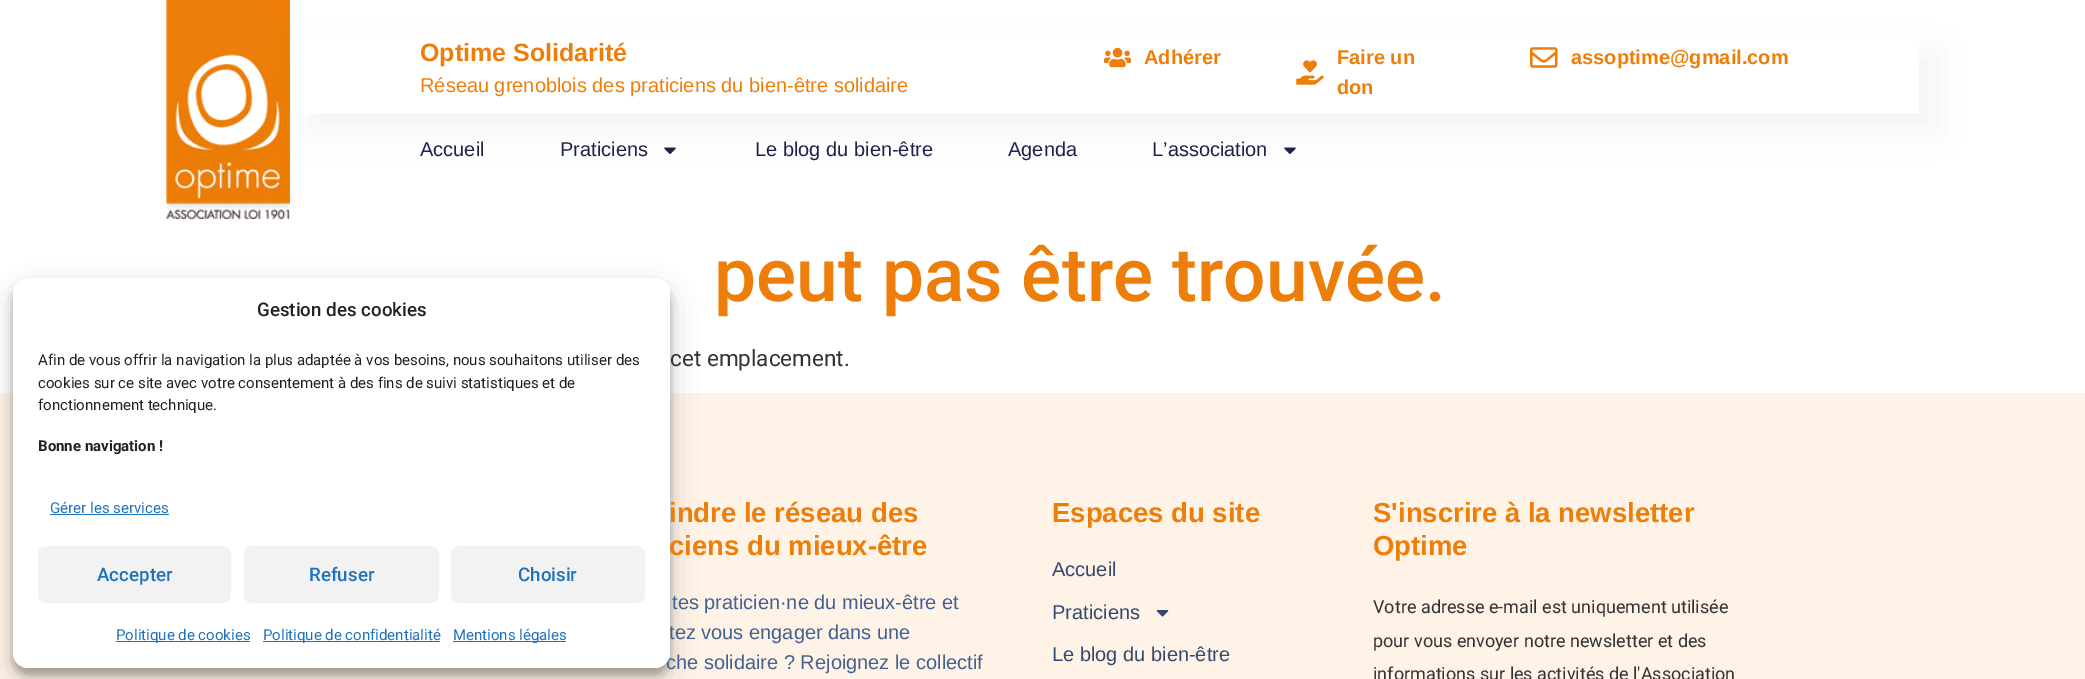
%!PS
<< /PageSize [2085 679] /PageUsesTransparency true >> setpagedevice
/f/fill load def
/s/stroke load def
/q/gsave load def
/Q_/grestore load def
/C { dup -16 bitshift 255 div exch dup -8 bitshift 255 and 255 div exch 255 and 255 div setrgbcolor } def
/F { [ exch dup neg 0 0 3 -1 roll 0 0 ] selectfont } def
/T { moveto show } def
/R { rectfill } def
/A { dup .setfillconstantalpha .setstrokeconstantalpha } def
/Q { 5 dict begin { /r /h /w /y /x } { exch def } forall
  x r add y moveto x w add y 2 copy h add r arct x w add y h add x 1 index r arct
  x y h add x y r arct x y 2 copy exch w add exch r arct closepath end } def
/S { 12 dict begin { /a /b /q /h /w /y /x } { exch def } forall gsave /was 0 def
  9 -2 -9 { dup b mul 4 div /e exch def 1 sub .425 mul 2.718 exch exp 1 add a .99 .min exch div /now exch def
    1 1 now sub 1 was sub div sub A /was now def
    w h .min e 2 mul add 0 gt { x e sub y e sub w e 2 mul add h e 2 mul add
      q e add b .6 mul add w h .min 2 div e add .min 0 .max Q fill } if } for grestore end } def
/I { 5 dict begin { /h /w /y /x /name } { exch def } forall
  gsave x y translate w h scale
  w h 8 [w 0 0 h 0 0] name (r) file false 3 colorimage grestore end } def
0 .pushpdf14devicefilter
0 679 translate 1 -1 scale
4 setmiterlimit
16#FFFFFF C
0 0 2085 679 R
(1.rgb) 166 0 124 220 I
(5.rgb) 664 147 12 7 I
(5.rgb) 1284 147 12 7 I
16#000000 C
303 46 1641 92 0 19 .04 S
16#FFFFFF C
290 34 1629 79 R
/LiberationSans-Bold 25 F
16#EC7E09 C
(Optime Solidarité) 420 61 T
/LiberationSans-Regular 20 F
(Réseau grenoblois des praticiens du bien-être solidaire) 420 92 T
(2.rgb) 1104 47 27 21 I
/LiberationSans-Bold 20 F
(Adhérer) 1144 64 T
(3.rgb) 1296 60 28 25 I
(Faire un) 1337 64 T
(don) 1337 94 T
(4.rgb) 1530 47 28 21 I
(assoptime@gmail.com) 1571 64 T
/LiberationSans-Regular 20 F
16#1C244B C
(Accueil) 420 156 T
(Praticiens) 560 156 T
(Le blog du bien-être) 755 156 T
(Agenda) 1008 156 T
(L’association) 1152 156 T
16#FEF3E6 C
0 393 2085 286 R
16#000000 C
13 285 657 390 15 4 .23 S
13 290 657 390 15 12.5 .19 S
16#426290 C
(tez vous engager dans une) 669 639 T
(che solidaire ? Rejoignez le collectif) 666 669 T
16#FFFFFF C
13 278 657 390 15 Q f
/Roboto-Medium 18.75 F
16#222222 C
(Gestion des cookies) 257 316 T
/Roboto-Regular 15 F
(Afin de vous offrir la navigation la plus adaptée à vos besoins, nous souhaitons utiliser des) 38 365 T
(cookies sur ce site avec votre consentement à des fins de suivi statistiques et de) 38 388 T
(fonctionnement technique.) 38 410 T
/Roboto-Bold 15 F
(Bonne navigation !) 38 451 T
/Roboto-Regular 15 F
16#1E73BE C
(Gérer les services) 50 513 T
50 514 119 1 R
16#F2F2F2 C
38.5 546.5 192 56 7.5 Q q f Q_
s
/Roboto-Medium 18.75 F
16#1E73BE C
(Accepter) 97 581 T
16#F2F2F2 C
244.5 546.5 194 56 7.5 Q q f Q_
s
16#1E73BE C
(Refuser) 309 581 T
16#F2F2F2 C
451.5 546.5 193 56 7.5 Q q f Q_
s
16#1E73BE C
(Choisir) 518 581 T
116 641 134 1 R
/Roboto-Regular 15 F
(Politique de cookies) 116 640 T
263 641 177 1 R
(Politique de confidentialité) 263 640 T
453 641 113 1 R
(Mentions légales) 453 640 T
/Roboto-Medium 75 F
16#EC7E09 C
(peut pas être trouvée.) 714 301 T
/Roboto-Regular 22.5 F
16#333333 C
(cet emplacement.) 670 366 T
/LiberationSans-Bold 27.5 F
16#EC7E09 C
(indre le réseau des) 669 522 T
(ciens du mieux-être) 669 555 T
/LiberationSans-Regular 20 F
16#426290 C
(tes praticien·ne du mieux-être et) 672 609 T
/LiberationSans-Bold 27.5 F
16#EC7E09 C
(Espaces du site) 1052 522 T
/LiberationSans-Regular 20 F
16#324A6D C
(Accueil) 1052 576 T
(Praticiens) 1052 619 T
(6.rgb) 1156 610 13 7 I
(Le blog du bien-être) 1052 661 T
/LiberationSans-Bold 27.5 F
16#EC7E09 C
(S'inscrire à la newsletter) 1373 522 T
(Optime) 1373 555 T
/Roboto-Regular 18 F
16#333333 C
(Votre adresse e-mail est uniquement utilisée) 1373 613 T
(pour vous envoyer notre newsletter et des) 1373 647 T
(informations sur les activités de l'Association) 1373 680 T
.poppdf14devicefilter showpage
